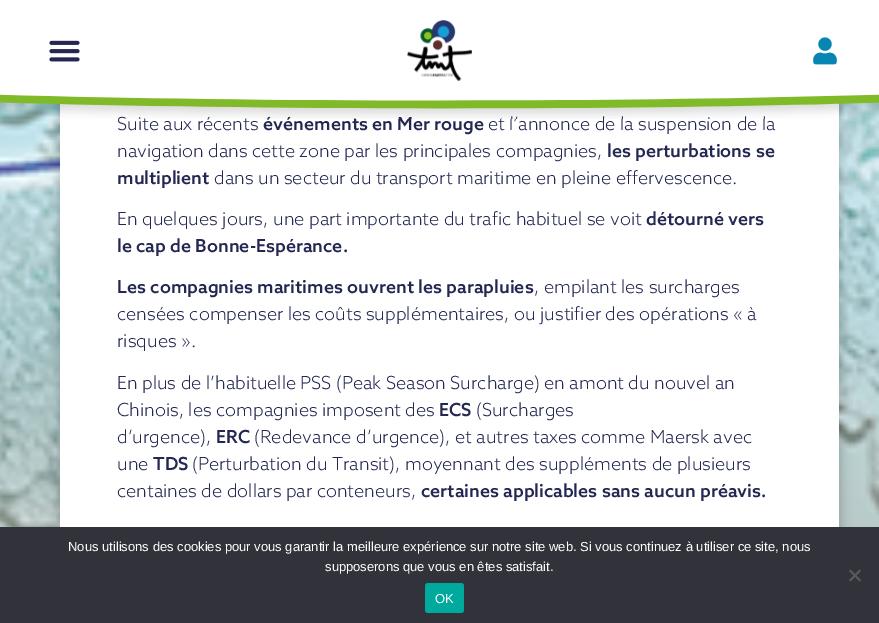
%!PS
<< /PageSize [879 623] /PageUsesTransparency true >> setpagedevice
/m/moveto load def
/l/rlineto load def
/z/closepath load def
/f/fill load def
/C { dup -16 bitshift 255 div exch dup -8 bitshift 255 and 255 div exch 255 and 255 div setrgbcolor } def
/F { [ exch dup neg 0 0 3 -1 roll 0 0 ] selectfont } def
/T { moveto show } def
/R { rectfill } def
/A { dup .setfillconstantalpha .setstrokeconstantalpha } def
/Q { 5 dict begin { /r /h /w /y /x } { exch def } forall
  x r add y moveto x w add y 2 copy h add r arct x w add y h add x 1 index r arct
  x y h add x y r arct x y 2 copy exch w add exch r arct closepath end } def
/S { 12 dict begin { /a /b /q /h /w /y /x } { exch def } forall gsave /was 0 def
  9 -2 -9 { dup b mul 4 div /e exch def 1 sub .425 mul 2.718 exch exp 1 add a .99 .min exch div /now exch def
    1 1 now sub 1 was sub div sub A /was now def
    w h .min e 2 mul add 0 gt { x e sub y e sub w e 2 mul add h e 2 mul add
      q e add b .6 mul add w h .min 2 div e add .min 0 .max Q fill } if } for grestore end } def
/I { 5 dict begin { /h /w /y /x /name } { exch def } forall
  gsave x y translate w h scale
  w h 8 [w 0 0 h 0 0] name (r) file false 3 colorimage grestore end } def
0 .pushpdf14devicefilter
0 623 translate 1 -1 scale
4 setmiterlimit
16#FFFFFF C
0 0 879 623 R
(5.rgb) 0 102 879 425 I
16#000000 C
57 49 785 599 10 5 .19 S
16#FFFFFF C
60 103 779 424 R
/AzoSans-Light 18 F
16#232752 C
(Suite aux récents) 117 130 T
/AzoSans-Medium 18 F
(événements en Mer rouge) 263 130 T
/AzoSans-Light 18 F
(et l’annonce de la suspension de la) 488 130 T
(1.rgb) 0 0 879 119 I
(2.rgb) 49 40 31 22 I
(3.rgb) 407 20 65 61 I
(4.rgb) 813 37 24 28 I
(navigation dans cette zone par les principales compagnies,) 117 157 T
/AzoSans-Medium 18 F
(les perturbations se) 607 157 T
(multiplient) 117 184 T
/AzoSans-Light 18 F
(dans un secteur du transport maritime en pleine effervescence.) 214 184 T
(En quelques jours, une part importante du trafic habituel se voit) 117 225 T
/AzoSans-Medium 18 F
(détourné vers) 646 225 T
(le cap de Bonne-Espérance.) 117 252 T
(Les compagnies maritimes ouvrent les parapluies) 117 293 T
/AzoSans-Light 18 F
(, empilant les surcharges) 534 293 T
(censées compenser les coûts supplémentaires, ou justifier des opérations « à) 117 320 T
(risques ».) 117 347 T
(En plus de l’habituelle PSS \(Peak Season Surcharge\) en amont du nouvel an) 117 389 T
(Chinois, les compagnies imposent des) 117 416 T
/AzoSans-Medium 18 F
(ECS) 439 416 T
/AzoSans-Light 18 F
(\(Surcharges) 476 416 T
(d’urgence\),) 117 443 T
/AzoSans-Medium 18 F
(ERC) 216 443 T
/AzoSans-Light 18 F
(\(Redevance d’urgence\), et autres taxes comme Maersk avec) 254 443 T
(une) 117 470 T
/AzoSans-Medium 18 F
(TDS) 153 470 T
/AzoSans-Light 18 F
(\(Perturbation du Transit\), moyennant des suppléments de plusieurs) 192 470 T
(centaines de dollars par conteneurs,) 117 497 T
/AzoSans-Medium 18 F
(certaines applicables sans aucun préavis.) 421 497 T
16#32323A C
0 527 879 96 R
/LiberationSans-Regular 13 F
16#FFFFFF C
(Nous utilisons des cookies pour vous garantir la meilleure expérience sur notre site web. Si vous continuez à utiliser ce site, nous) 68 551 T
(supposerons que vous en êtes satisfait.) 325 571 T
16#59595D C
859.5 569.5 m 1.5 1.5 l -10.5 10.5 l -1.5 -1.5 l z f
849 571 m 1.5 -1.5 l 10.5 10.5 l -1.5 1.5 l z f
16#00A99D C
425 583 39 30 3 Q f
16#FFFFFF C
(OK) 435 603 T
.poppdf14devicefilter showpage
